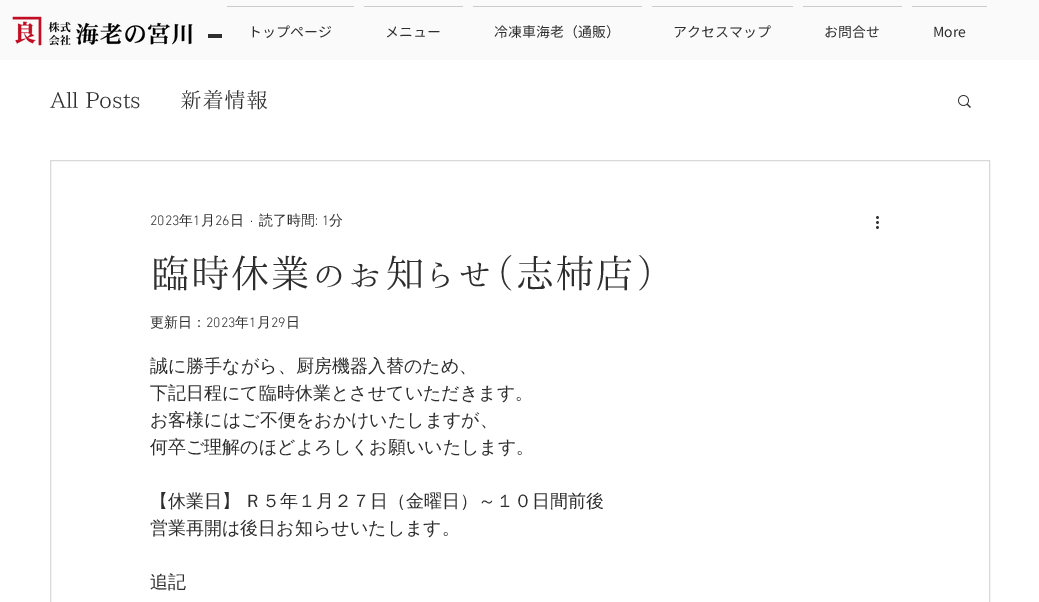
%!PS
<< /PageSize [1039 602] >> setpagedevice
/m/moveto load def
/C { dup -16 bitshift 255 div exch dup -8 bitshift 255 and 255 div exch 255 and 255 div setrgbcolor } def
/F { [ exch dup neg 0 0 3 -1 roll 0 0 ] selectfont } def
/T { moveto show } def
/R { rectfill } def
/I { 5 dict begin { /h /w /y /x /name } { exch def } forall
  gsave x y translate w h scale
  w h 8 [w 0 0 h 0 0] name (r) file false 3 colorimage grestore end } def
0 602 translate 1 -1 scale
4 setmiterlimit
16#FFFFFF C
0 0 1039 602 R
16#FAFAFA C
0 0 1039 60 R
(1.rgb) 12 16 181 30 I
16#2F2E2E C
208 34 14 4 R
16#CCCCCC C
227 6 127 1 R
/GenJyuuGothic-Regular 14 F
16#2F2E2E C
(トップページ) 248 37 T
16#CCCCCC C
364 6 99 1 R
16#2F2E2E C
(メニュー) 385 37 T
16#CCCCCC C
473 6 169 1 R
16#2F2E2E C
(冷凍車海老（通販）) 494 37 T
16#CCCCCC C
652 6 141 1 R
16#2F2E2E C
(アクセスマップ) 673 37 T
16#CCCCCC C
803 6 99 1 R
16#2F2E2E C
(お問合せ) 824 37 T
16#CCCCCC C
912 6 75 1 R
16#2F2E2E C
(More) 933 37 T
/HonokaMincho-Regular 22 F
(All Posts) 50 108 T
(新着情報) 180 108 T
(2.rgb) 958 95 13 13 I
16#D9D9D9 C
50.5 160.5 939 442 rectstroke
/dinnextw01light-Light 14 F
16#2F2E2E C
(2023) 150 225 T
/WenQuanYiZenHei-Medium 14 F
(年) 179 225 T
/dinnextw01light-Light 14 F
(1) 193 225 T
/WenQuanYiZenHei-Medium 14 F
(月) 201 225 T
/dinnextw01light-Light 14 F
(26) 215 225 T
/WenQuanYiZenHei-Medium 14 F
(日) 230 225 T
/dinnextw01light-Light 14 F
(·) 250 225 T
/WenQuanYiZenHei-Medium 14 F
(読了時間) 259 225 T
/dinnextw01light-Light 14 F
(: 1) 315 225 T
/WenQuanYiZenHei-Medium 14 F
(分) 329 225 T
(3.rgb) 876 216 3 13 I
/HonokaMincho-Regular 40 F
(臨時休業のお知らせ（志柿店）) 150 288 T
/WenQuanYiZenHei-Medium 14 F
(更新日：) 150 327 T
/dinnextw01light-Light 14 F
(2023) 206 327 T
/WenQuanYiZenHei-Medium 14 F
(年) 235 327 T
/dinnextw01light-Light 14 F
(1) 249 327 T
/WenQuanYiZenHei-Medium 14 F
(月) 257 327 T
/dinnextw01light-Light 14 F
(29) 271 327 T
/WenQuanYiZenHei-Medium 14 F
(日) 286 327 T
/WenQuanYiZenHei-Medium 18 F
(誠に勝手ながら、厨房機器入替のため、) 150 372 T
(下記日程にて臨時休業とさせていただきます。) 150 399 T
(お客様にはご不便をおかけいたしますが、) 150 426 T
(何卒ご理解のほどよろしくお願いいたします。) 150 453 T
150 507 m -1 0 32 (【休業日】 Ｒ５年１月２７日（金曜日）～１０日間前後) widthshow
(営業再開は後日お知らせいたします。) 150 534 T
(追記) 150 588 T
showpage
